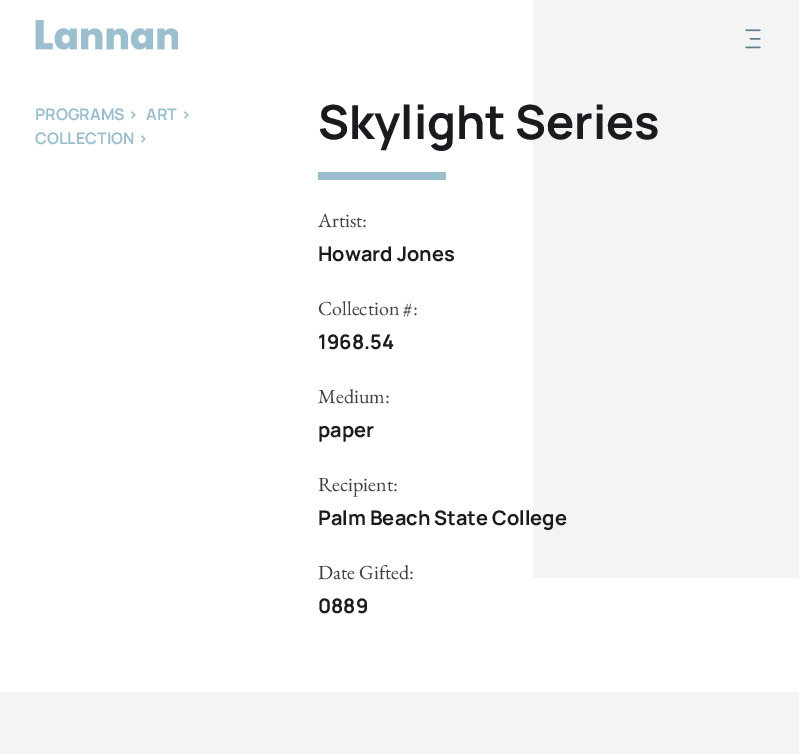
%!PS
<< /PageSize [799 754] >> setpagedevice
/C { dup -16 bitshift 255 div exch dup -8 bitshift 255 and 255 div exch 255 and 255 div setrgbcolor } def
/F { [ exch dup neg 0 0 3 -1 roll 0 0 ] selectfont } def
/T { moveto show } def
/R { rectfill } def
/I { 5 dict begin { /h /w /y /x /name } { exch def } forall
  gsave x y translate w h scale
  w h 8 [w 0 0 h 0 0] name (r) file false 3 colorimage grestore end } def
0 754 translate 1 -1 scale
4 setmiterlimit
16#FFFFFF C
0 0 799 754 R
(1.rgb) 35 20 143 30 I
16#F4F4F5 C
533 0 266 578 R
(2.rgb) 745 29 16 20 I
/Manrope-Bold 16 F
16#9CBFCF C
(PROGRAMS) 35 120 T
(>) 128 120 T
(ART) 146 120 T
(>) 181 120 T
(COLLECTION) 35 144 T
(>) 138 144 T
/Manrope-Bold 47 F
16#1A1B1E C
(Skylight Series) 318 139 T
16#9CBFCF C
318 172 128 8 R
/EBGaramond-Regular 20 F
16#3E4047 C
(Artist:) 318 227 T
/Manrope-Bold 20 F
16#1A1B1E C
(Howard Jones) 318 261 T
/EBGaramond-Regular 20 F
16#3E4047 C
(Collection #:) 318 315 T
/Manrope-Bold 20 F
16#1A1B1E C
(1968.54) 318 349 T
/EBGaramond-Regular 20 F
16#3E4047 C
(Medium:) 318 403 T
/Manrope-Bold 20 F
16#1A1B1E C
(paper) 318 437 T
/EBGaramond-Regular 20 F
16#3E4047 C
(Recipient:) 318 491 T
/Manrope-Bold 20 F
16#1A1B1E C
(Palm Beach State College) 318 525 T
/EBGaramond-Regular 20 F
16#3E4047 C
(Date Gifted:) 318 579 T
/Manrope-Bold 20 F
16#1A1B1E C
(0889) 318 613 T
16#F4F4F5 C
0 692 799 62 R
showpage
